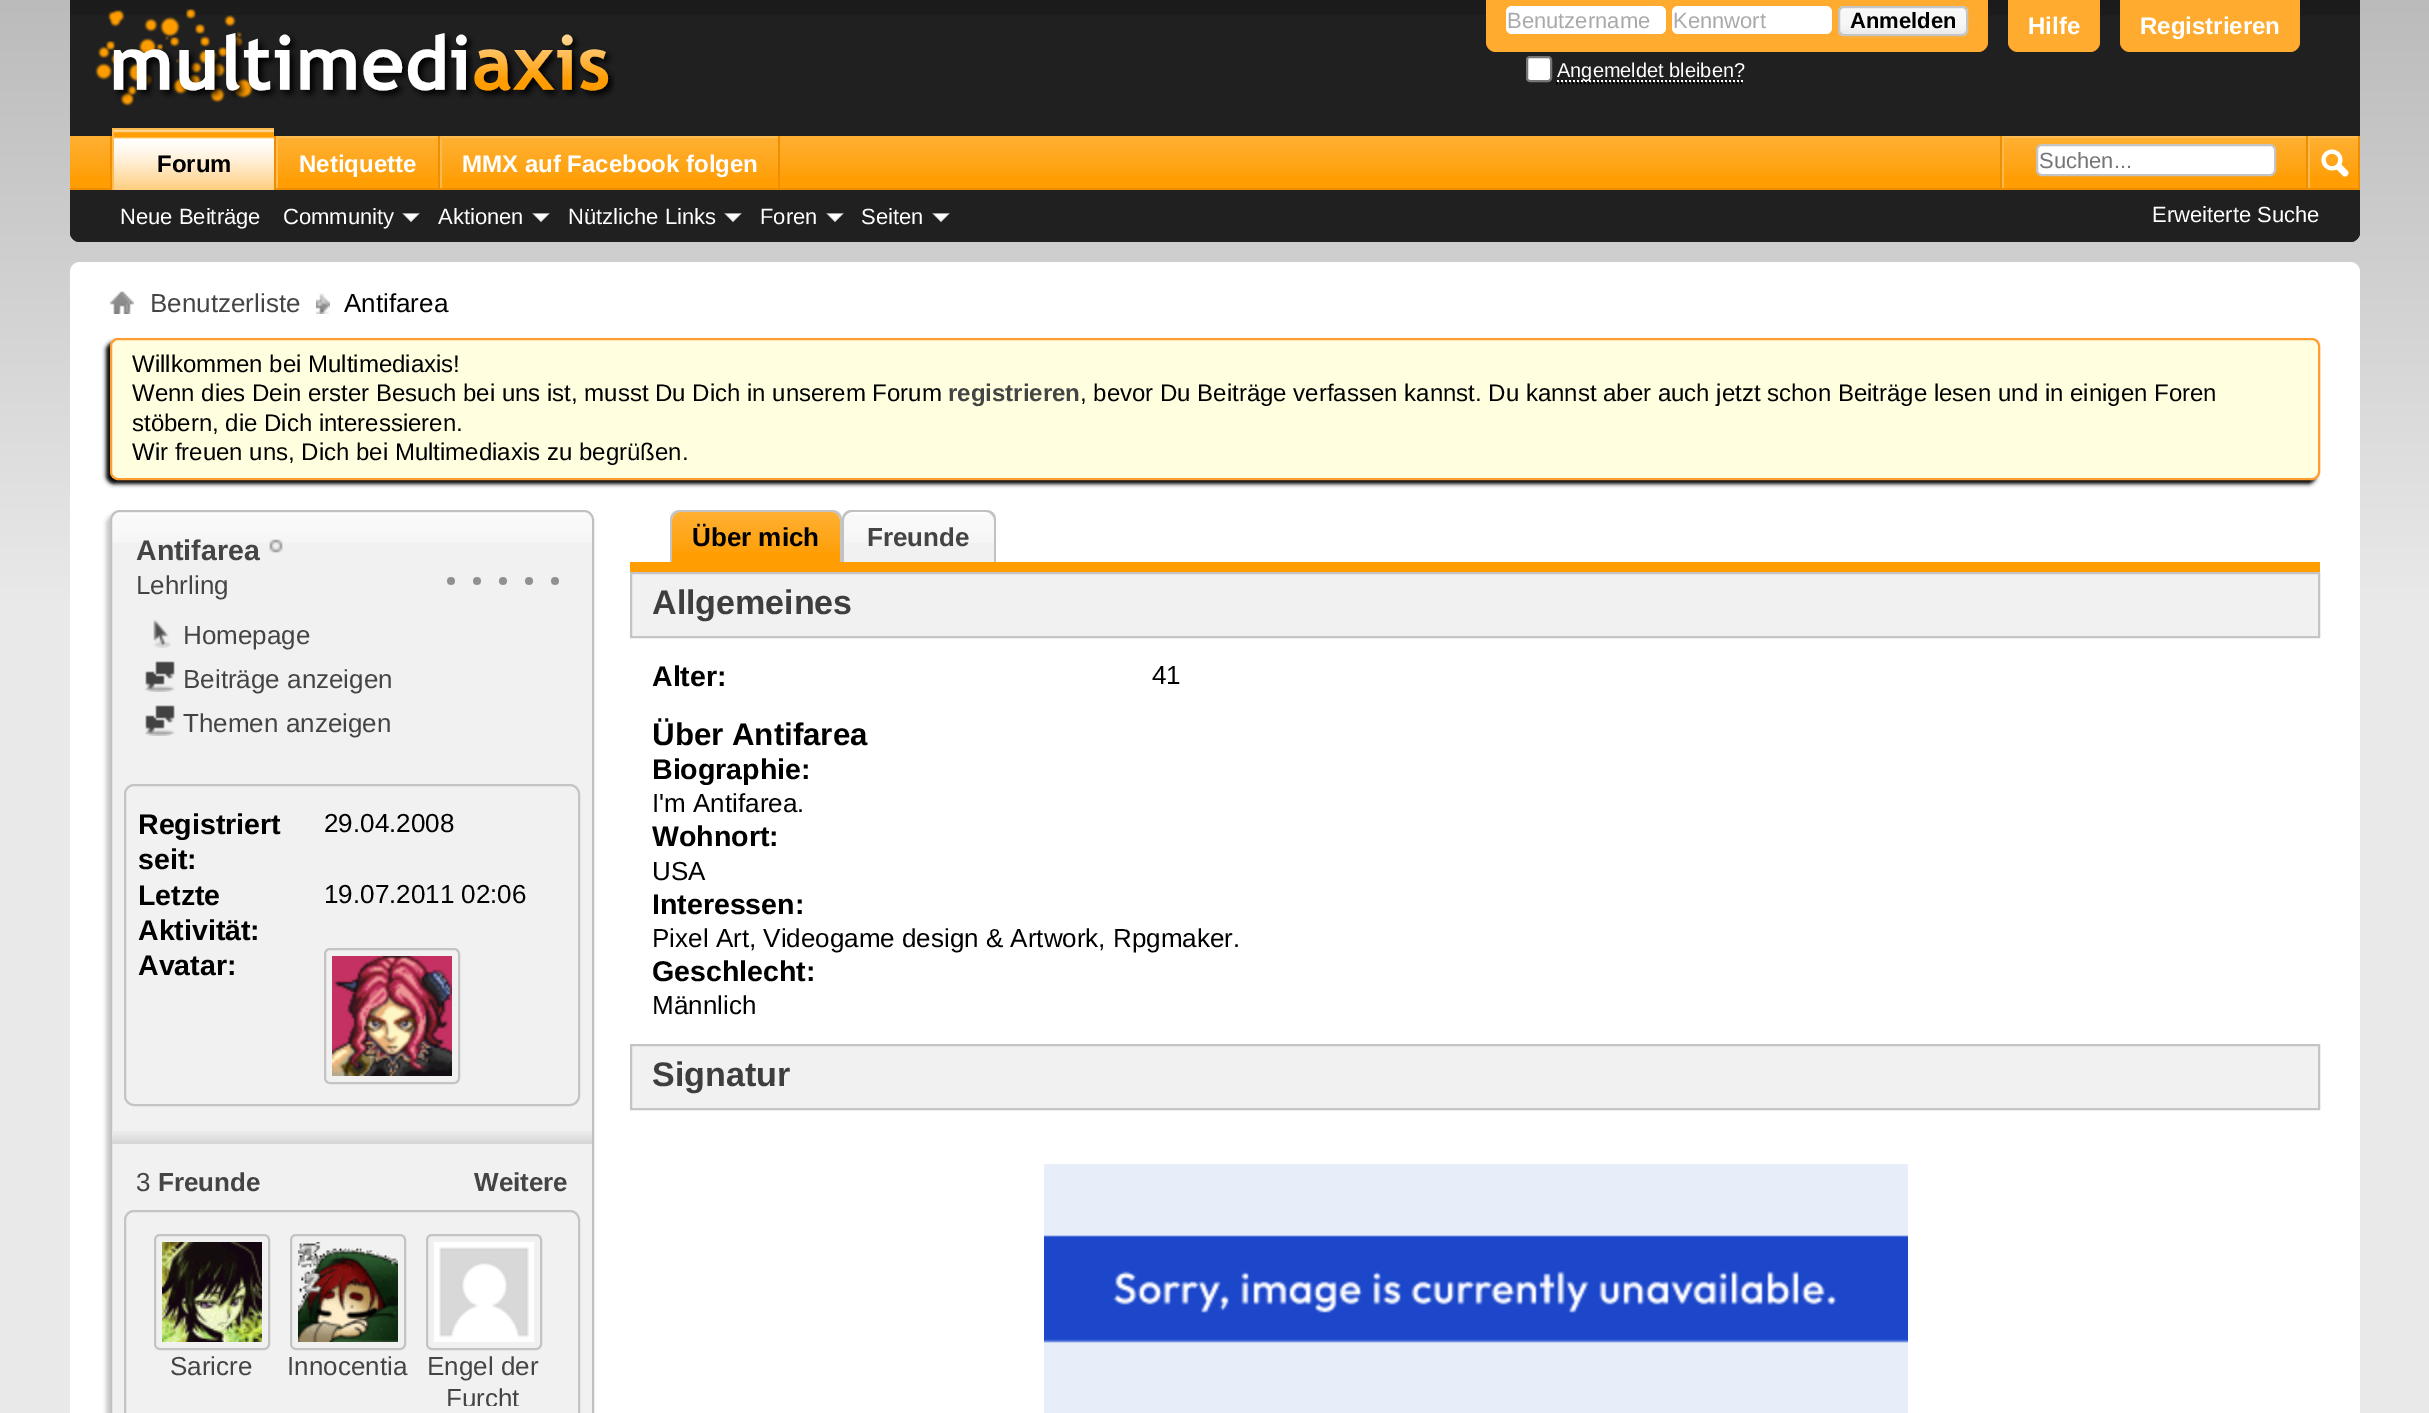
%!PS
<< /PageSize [2429 1413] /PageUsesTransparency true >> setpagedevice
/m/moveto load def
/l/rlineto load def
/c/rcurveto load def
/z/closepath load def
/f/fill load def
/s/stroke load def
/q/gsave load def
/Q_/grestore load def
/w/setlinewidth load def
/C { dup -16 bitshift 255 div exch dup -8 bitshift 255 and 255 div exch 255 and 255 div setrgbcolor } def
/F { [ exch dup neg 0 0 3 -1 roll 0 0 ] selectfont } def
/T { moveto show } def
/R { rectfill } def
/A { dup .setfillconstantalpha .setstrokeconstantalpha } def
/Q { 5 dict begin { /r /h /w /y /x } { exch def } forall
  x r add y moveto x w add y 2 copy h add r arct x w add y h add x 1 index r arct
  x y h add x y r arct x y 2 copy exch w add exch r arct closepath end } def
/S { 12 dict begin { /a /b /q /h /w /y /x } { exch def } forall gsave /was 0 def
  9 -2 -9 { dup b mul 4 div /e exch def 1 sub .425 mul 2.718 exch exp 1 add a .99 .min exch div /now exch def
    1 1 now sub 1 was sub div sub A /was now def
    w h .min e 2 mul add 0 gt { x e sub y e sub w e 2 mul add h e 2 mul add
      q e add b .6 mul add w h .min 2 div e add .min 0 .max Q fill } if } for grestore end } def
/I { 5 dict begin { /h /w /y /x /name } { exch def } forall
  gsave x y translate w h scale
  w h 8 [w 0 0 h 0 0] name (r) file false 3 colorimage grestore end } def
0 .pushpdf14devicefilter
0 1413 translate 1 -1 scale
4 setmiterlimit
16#FFFFFF C
0 0 2429 1413 R
q 0 0 m 2429 0 l 0 1413 l -2429 0 l z clip newpath
<< /ShadingType 2 /ColorSpace /DeviceRGB /Coords [0 0 0 600] /Extend [true true] /Function << /FunctionType 2 /Domain [0 1] /C0 [.733 .733 .733] /C1 [.914 .914 .914] /N 1 >> >> shfill Q_
16#202020 C
70 0 m 2290 0 l 0 232 l 0 5.5 -4.5 10 -10 10 c -2270 0 l -5.5 0 -10 -4.5 -10 -10 c z f
(1.rgb) 70 0 2290 15 I
(2.rgb) 95 9 520 97 I
16#FFAB2F C
1486 0 m 502 0 l 0 42 l 0 5.5 -4.5 10 -10 10 c -482 0 l -5.5 0 -10 -4.5 -10 -10 c z f
16#FFFFFF C
1506 6 160 28 6 Q f
/LiberationSans-Regular 22 F
16#A9A9A9 C
(Benutzername) 1507 28 T
16#FFFFFF C
1672 6 160 28 6 Q f
16#A9A9A9 C
(Kennwort) 1673 28 T
16#E9E9E9 C
1838 6 130 30 6 Q f
(3.rgb) 1838 8 130 27 I
16#C4C4C4 C
2 w
1839 7 128 28 5 Q s
/LiberationSans-Bold 22 F
16#000000 C
(Anmelden) 1850 28 T
16#FFFFFF C
1527 57 24 24 3 Q q f Q_
16#767676 C
s
16#FFFFFF C
[2 2] 0 setdash
1557 81 m 188 0 l s
/LiberationSans-Regular 20 F
(Angemeldet bleiben?) 1557 77 T
16#000000 C
1556 83 m 188 0 l s
16#FFAB2F C
2008 0 m 92 0 l 0 42 l 0 5.5 -4.5 10 -10 10 c -72 0 l -5.5 0 -10 -4.5 -10 -10 c z f
/LiberationSans-Bold 24 F
16#FFFFFF C
(Hilfe) 2028 34 T
16#FFAB2F C
2120 0 m 180 0 l 0 42 l 0 5.5 -4.5 10 -10 10 c -160 0 l -5.5 0 -10 -4.5 -10 -10 c z f
16#FFFFFF C
(Registrieren) 2140 34 T
16#202020 C
70 136 m 2290 0 l 0 96 l 0 5.5 -4.5 10 -10 10 c -2270 0 l -5.5 0 -10 -4.5 -10 -10 c z f
16#FF9D03 C
70 136 2288 52 R
(4.rgb) 70 136 2288 40 I
16#EE8E00 C
274 136 2 52 R
110 136 2 52 R
438 136 2 54 R
16#FFBB4D C
276 136 162 2 R
276 136 2 54 R
16#EE8E00 C
778 136 2 54 R
16#FFBB4D C
440 136 338 2 R
440 136 2 54 R
16#EE8E00 C
70 188 2290 2 R
16#FF9D03 C
114 130 160 60 R
(5.rgb) 114 130 160 60 I
16#FFBB4D C
112 128 162 2 R
112 128 2 62 R
16#000000 C
(Forum) 157 172 T
16#FF9D03 C
278 138 160 38 R
(6.rgb) 278 138 160 40 I
16#FFFFFF C
(Netiquette) 299 172 T
16#FF9D03 C
442 138 336 38 R
(7.rgb) 442 138 336 40 I
16#FFFFFF C
(MMX auf Facebook folgen) 462 172 T
/LiberationSans-Regular 22 F
(Neue Beiträge) 120 224 T
(Community) 283 224 T
(8.rgb) 402 213 18 10 I
(Aktionen) 438 224 T
(8.rgb) 532 213 18 10 I
(Nützliche Links) 568 224 T
(8.rgb) 724 213 18 10 I
(Foren) 760 224 T
(8.rgb) 826 213 18 10 I
(Seiten) 861 224 T
(8.rgb) 932 213 18 10 I
16#EE8E00 C
2000 136 2 52 R
16#FFBB4D C
2002 136 304 2 R
2002 136 2 52 R
16#FFFFFF C
2037 145 238 30 5 Q q f Q_
16#C4C4C4 C
[] 0 setdash
s
16#757575 C
(Suchen...) 2039 168 T
16#EE8E00 C
2358 136 2 52 R
2306 136 2 52 R
16#FFBB4D C
2308 136 50 2 R
2308 136 2 52 R
(9.rgb) 2321 149 28 28 I
16#FFFFFF C
(Erweiterte Suche) 2152 222 T
70 262 2290 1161 10 Q f
(10.rgb) 110 291 24 23 I
(11.rgb) 316 293 14 21 I
/LiberationSans-Regular 26 F
16#444444 C
(Benutzerliste) 150 312 T
16#000000 C
(Antifarea) 344 312 T
106 342 2210 142 8 2 1 S
16#FFFFE0 C
111 339 2208 140 7 Q q f Q_
16#FF9D30 C
s
/LiberationSans-Regular 24 F
16#000000 C
(Willkommen bei Multimediaxis!) 132 372 T
(Wenn dies Dein erster Besuch bei uns ist, musst Du Dich in unserem Forum) 132 401 T
/LiberationSans-Bold 24 F
16#444444 C
(registrieren) 948 401 T
/LiberationSans-Regular 24 F
16#000000 C
(, bevor Du Beiträge verfassen kannst. Du kannst aber auch jetzt schon Beiträge lesen und in einigen Foren) 1080 401 T
(stöbern, die Dich interessieren.) 132 431 T
(Wir freuen uns, Dich bei Multimediaxis zu begrüßen.) 132 460 T
16#C8C8C8 C
106 514 484 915 10 2 1 S
16#F1F1F1 C
110 510 484 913 10 Q f
(12.rgb) 110 512 484 31 I
16#C1C1C1 C
111 511 482 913 9 Q s
/LiberationSans-Bold 28.5 F
16#444444 C
(Antifarea) 136 560 T
(13.rgb) 269 539 14 14 I
/LiberationSans-Regular 26 F
(Lehrling) 136 594 T
(14.rgb) 447 577 112 8 I
(15.rgb) 153 619 18 29 I
(Homepage) 183 644 T
(16.rgb) 145 661 30 31 I
(Beiträge anzeigen) 183 688 T
(16.rgb) 145 705 30 31 I
(Themen anzeigen) 183 732 T
16#C4C4C4 C
125 785 454 320 9 Q s
/LiberationSans-Bold 28.5 F
16#000000 C
(Registriert) 138 834 T
(seit:) 138 869 T
/LiberationSans-Regular 26 F
(29.04.2008) 324 832 T
/LiberationSans-Bold 28.5 F
(Letzte) 138 905 T
(Aktivität:) 138 940 T
/LiberationSans-Regular 26 F
(19.07.2011 02:06) 324 903 T
/LiberationSans-Bold 28.5 F
(Avatar:) 138 975 T
16#C4C4C4 C
325 949 134 134 5 Q s
(17.rgb) 332 956 120 120 I
(18.rgb) 112 1131 480 13 I
/LiberationSans-Regular 26 F
16#444444 C
(3) 136 1191 T
/LiberationSans-Bold 26 F
(Freunde) 158 1191 T
(Weitere) 474 1191 T
16#C4C4C4 C
125 1211 454 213 9 Q s
155 1235 114 114 5 Q s
(19.rgb) 162 1242 100 100 I
/LiberationSans-Regular 26 F
16#444444 C
(Saricre) 170 1375 T
16#C4C4C4 C
291 1235 114 114 5 Q s
(20.rgb) 298 1242 100 100 I
16#444444 C
(Innocentia) 287 1375 T
16#C4C4C4 C
427 1235 114 114 5 Q s
(21.rgb) 434 1242 100 100 I
16#444444 C
(Engel der) 427 1375 T
q
420 1234 126 172 rectclip
(Furcht) 446 1407 T
Q_
16#FF9D03 C
680 512 m 152 0 l 4.5 0 8 3.5 8 8 c 0 42 l -168 0 l 0 -42 l 0 -4.5 3.5 -8 8 -8 c z f
(22.rgb) 672 512 168 40 I
16#C4C4C4 C
680 510 m 152 0 l 6 0 10 4 10 10 c 0 42 l -172 0 l 0 -42 l 0 -6 4 -10 10 -10 c z 680 512 m 152 0 l 4 0 8 4 8 8 c 0 42 l -168 0 l 0 -42 l 0 -4 4 -8 8 -8 c z eofill
/LiberationSans-Bold 26 F
16#000000 C
(Über mich) 692 546 T
16#F1F1F1 C
852 512 m 134 0 l 4.5 0 8 3.5 8 8 c 0 42 l -150 0 l 0 -42 l 0 -4.5 3.5 -8 8 -8 c z f
(23.rgb) 844 512 150 31 I
16#C1C1C1 C
852 510 m 134 0 l 6 0 10 4 10 10 c 0 42 l -154 0 l 0 -42 l 0 -6 4 -10 10 -10 c z 852 512 m 134 0 l 4 0 8 4 8 8 c 0 42 l -150 0 l 0 -42 l 0 -4 4 -8 8 -8 c z eofill
16#444444 C
(Freunde) 867 546 T
16#FF9D03 C
630 562 1690 10 R
16#F1F1F1 C
631 573 m 1688 0 l 0 64 l -1688 0 l z q f Q_
16#C4C4C4 C
s
/LiberationSans-Bold 34 F
16#3E3E3E C
(Allgemeines) 652 614 T
/LiberationSans-Bold 28.5 F
16#000000 C
(Alter:) 652 686 T
/LiberationSans-Regular 26 F
(41) 1152 684 T
/LiberationSans-Bold 31.25 F
(Über Antifarea) 652 745 T
/LiberationSans-Bold 28.5 F
(Biographie:) 652 779 T
/LiberationSans-Regular 26 F
(I'm Antifarea.) 652 812 T
/LiberationSans-Bold 28.5 F
(Wohnort:) 652 846 T
/LiberationSans-Regular 26 F
(USA) 652 880 T
/LiberationSans-Bold 28.5 F
(Interessen:) 652 914 T
/LiberationSans-Regular 26 F
(Pixel Art, Videogame design & Artwork, Rpgmaker.) 652 947 T
/LiberationSans-Bold 28.5 F
(Geschlecht:) 652 981 T
/LiberationSans-Regular 26 F
(Männlich) 652 1014 T
16#F1F1F1 C
631 1045 m 1688 0 l 0 64 l -1688 0 l z q f Q_
16#C4C4C4 C
s
/LiberationSans-Bold 34 F
16#3E3E3E C
(Signatur) 652 1086 T
(24.rgb) 1044 1164 864 249 I
.poppdf14devicefilter showpage
